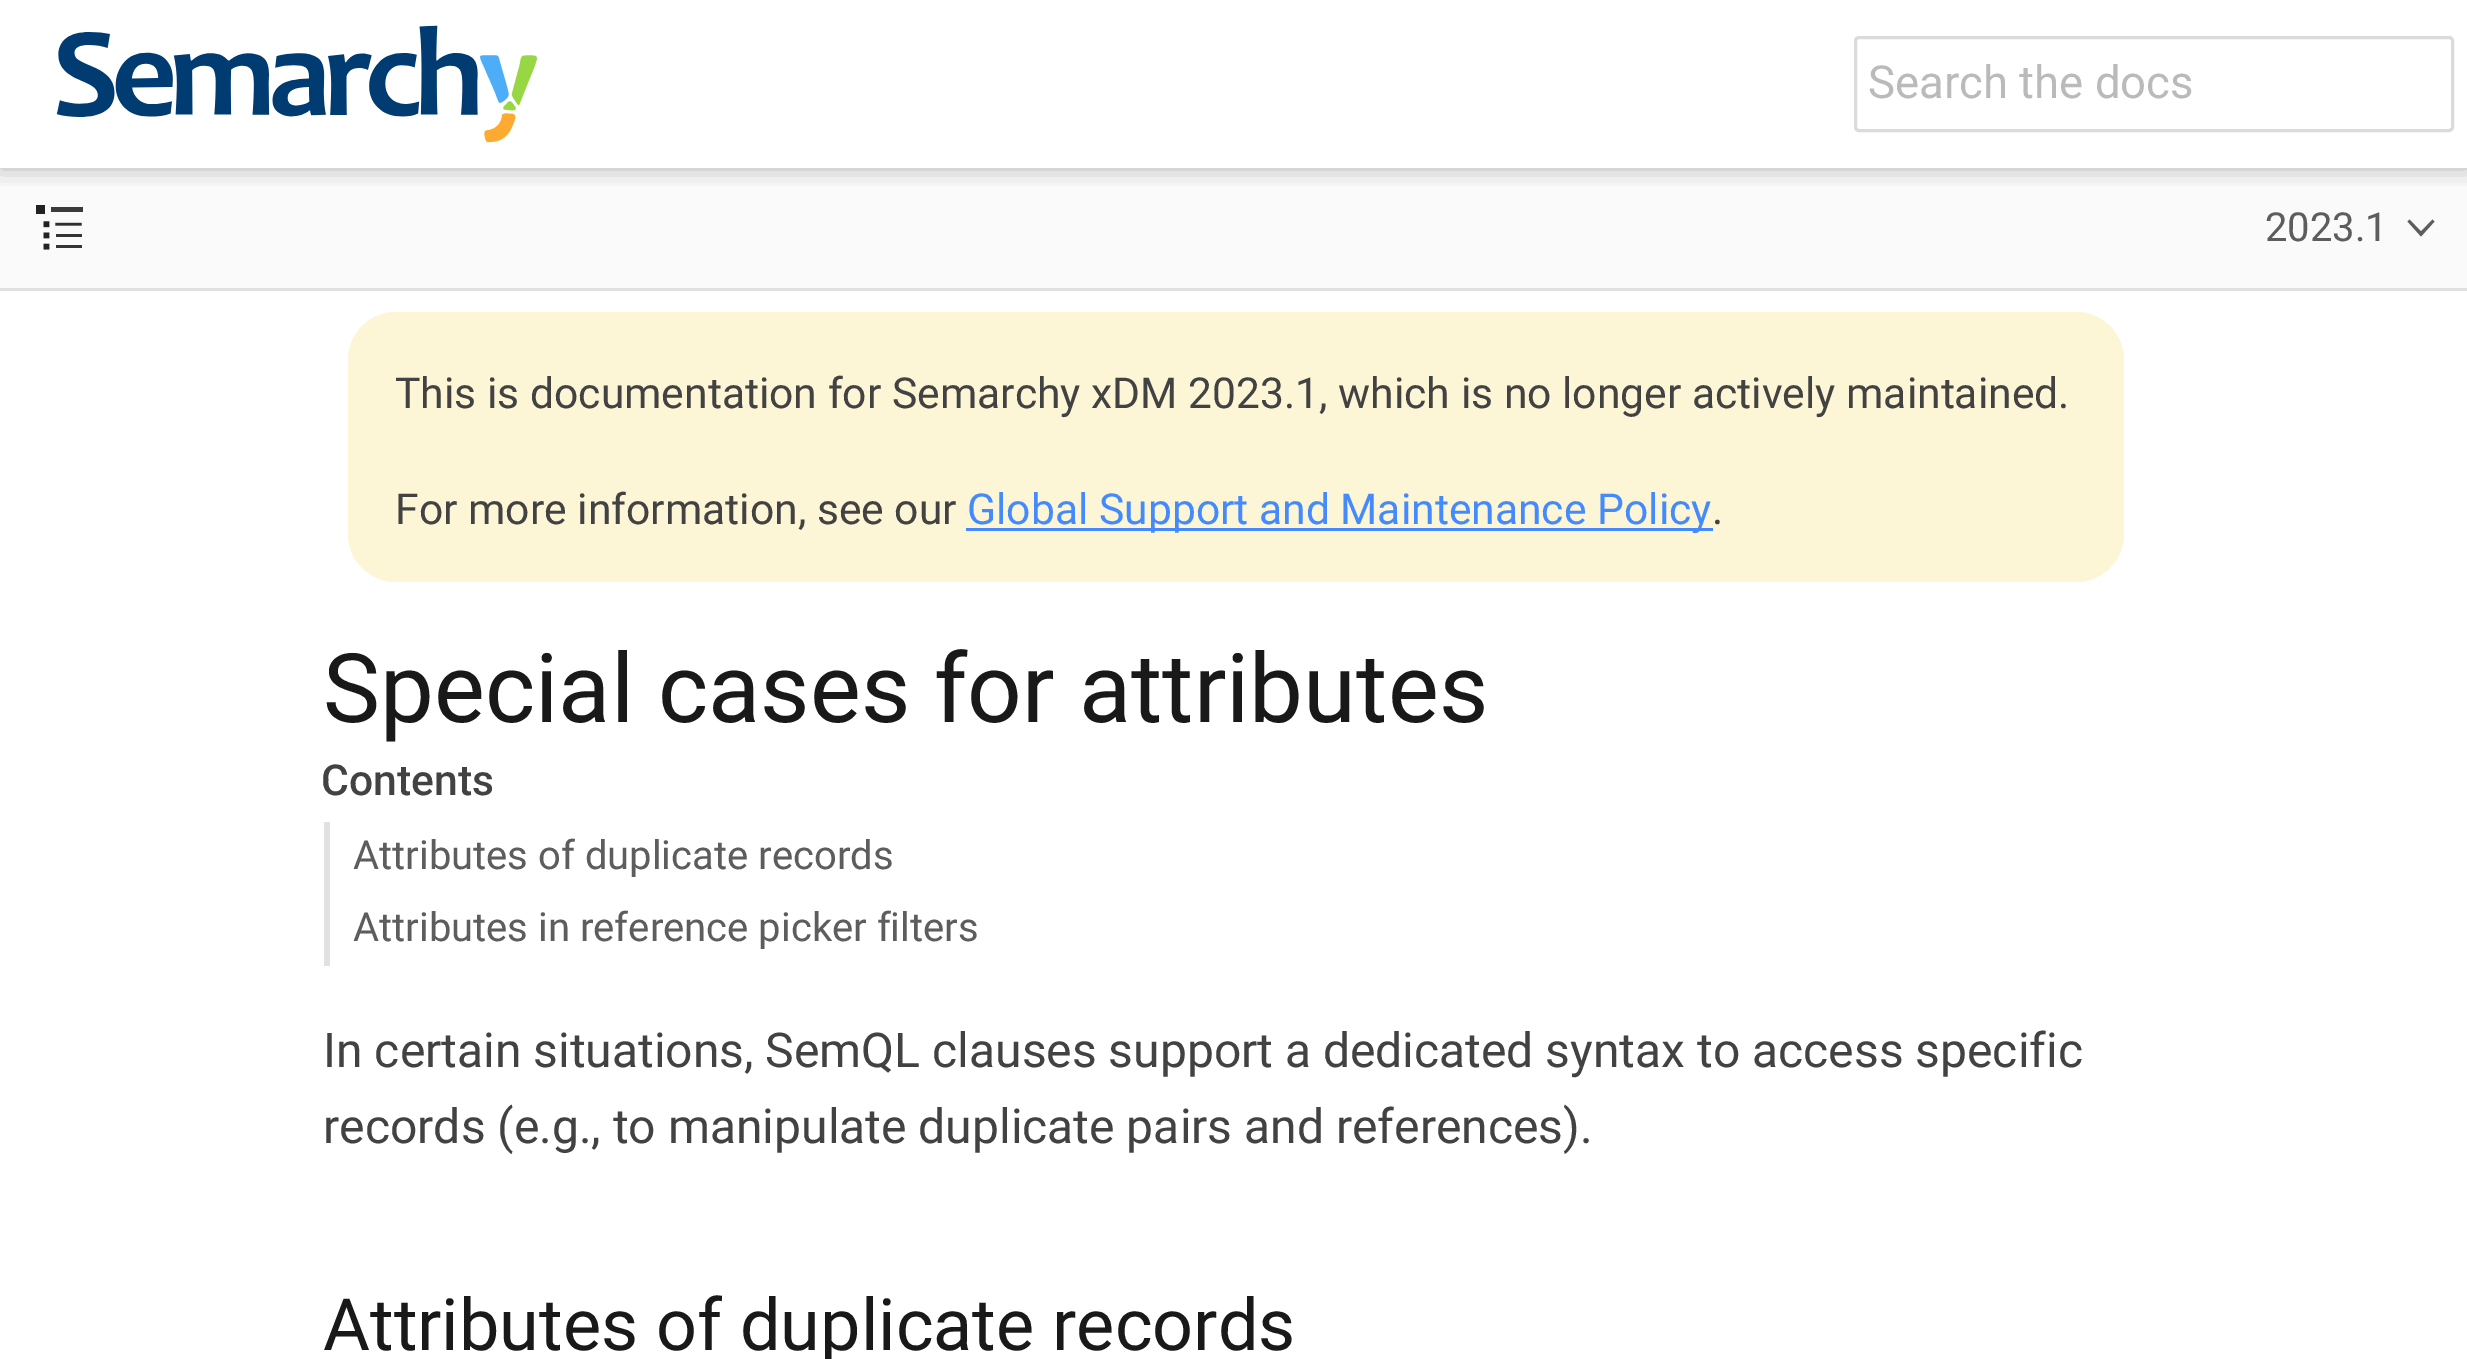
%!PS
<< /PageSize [2467 1359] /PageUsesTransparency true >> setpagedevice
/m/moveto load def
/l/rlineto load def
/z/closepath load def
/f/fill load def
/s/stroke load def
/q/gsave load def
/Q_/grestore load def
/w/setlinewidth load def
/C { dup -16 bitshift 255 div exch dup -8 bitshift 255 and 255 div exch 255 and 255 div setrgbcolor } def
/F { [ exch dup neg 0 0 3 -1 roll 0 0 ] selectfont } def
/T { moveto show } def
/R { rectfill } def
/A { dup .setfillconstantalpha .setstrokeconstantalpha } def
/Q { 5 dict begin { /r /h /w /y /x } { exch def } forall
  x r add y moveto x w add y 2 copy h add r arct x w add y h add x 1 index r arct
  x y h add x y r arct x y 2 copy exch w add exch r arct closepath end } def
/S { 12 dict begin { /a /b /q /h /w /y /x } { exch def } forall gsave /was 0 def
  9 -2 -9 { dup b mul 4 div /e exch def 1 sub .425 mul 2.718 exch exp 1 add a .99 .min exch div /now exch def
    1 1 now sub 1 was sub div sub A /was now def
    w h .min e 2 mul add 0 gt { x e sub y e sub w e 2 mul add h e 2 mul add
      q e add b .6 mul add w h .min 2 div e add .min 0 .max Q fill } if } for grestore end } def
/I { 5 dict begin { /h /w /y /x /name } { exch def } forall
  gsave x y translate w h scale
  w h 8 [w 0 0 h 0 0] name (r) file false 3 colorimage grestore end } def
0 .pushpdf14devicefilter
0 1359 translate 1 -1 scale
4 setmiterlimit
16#FFFFFF C
0 0 2467 1359 R
16#FAFAFA C
0 168 2467 120 R
q
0 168 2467 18 rectclip
16#000000 C
0 0 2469 168 0 12 .3 S
Q_
(1.rgb) 57 25 480 118 I
16#DBDBDB C
3 w
1855.5 37.5 597 93 3.5 Q s
/Roboto-Regular 45.5 F
16#BABABA C
(Search the docs) 1868 98 T
16#E1E1E1 C
0 288 2467 3 R
(2.rgb) 36 205 47 45 I
16#5D5D5D C
2409.5 219.5 m -2 2 l 13.5 15 l 13.5 -15 l -2 -2 l -11.5 12 l z f
/Roboto-Regular 40 F
(2023.1) 2265 241 T
16#FCF5D6 C
348 312 1776 270 48 Q f
/Roboto-Regular 42.65 F
16#424242 C
(This is documentation for Semarchy xDM 2023.1, which is no longer actively maintained.) 395 408 T
(For more information, see our) 395 524 T
16#448AFF C
966 528 747 3 R
(Global Support and Maintenance Policy) 967 524 T
16#424242 C
(.) 1712 524 T
/Roboto-Regular 96 F
16#191919 C
(Special cases for attributes) 323 722 T
/Roboto-Medium 42.65 F
16#424242 C
(Contents) 321 795 T
16#E1E1E1 C
324 822 6 144 R
/Roboto-Regular 40 F
16#5D5D5D C
(Attributes of duplicate records) 353 869 T
(Attributes in reference picker filters) 353 941 T
/Roboto-Regular 48 F
16#424242 C
(In certain situations, SemQL clauses support a dedicated syntax to access specific) 323 1067 T
(records \(e.g., to manipulate duplicate pairs and references\).) 323 1143 T
/Roboto-Regular 72 F
16#191919 C
(Attributes of duplicate records) 323 1350 T
.poppdf14devicefilter showpage
